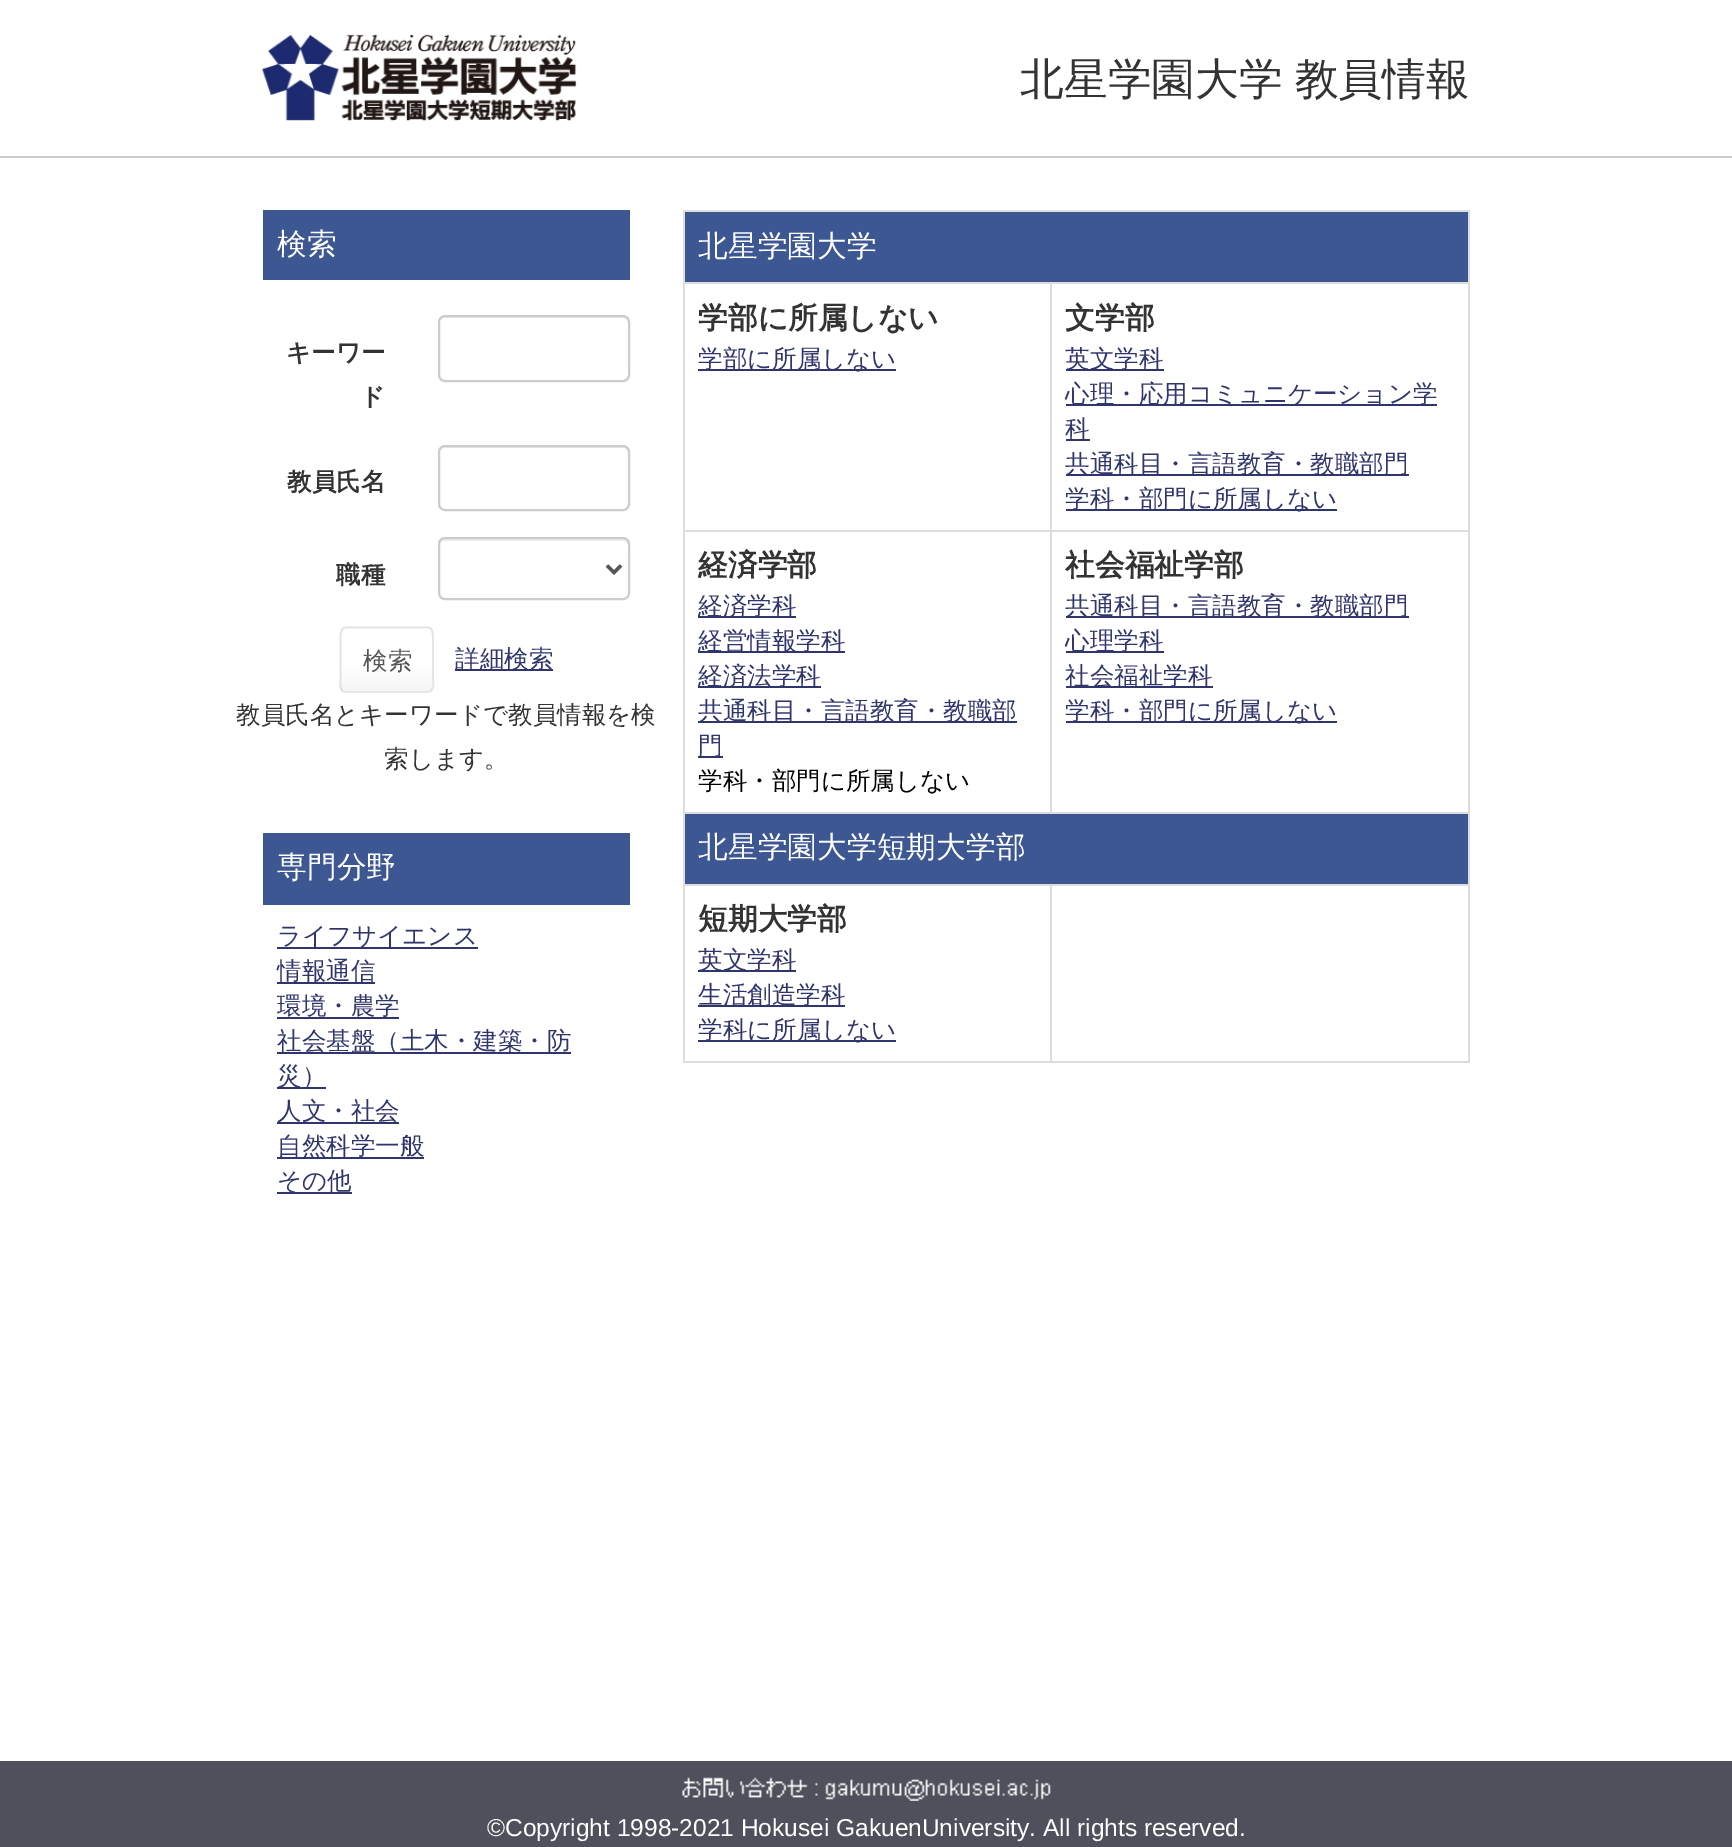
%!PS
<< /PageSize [1732 1847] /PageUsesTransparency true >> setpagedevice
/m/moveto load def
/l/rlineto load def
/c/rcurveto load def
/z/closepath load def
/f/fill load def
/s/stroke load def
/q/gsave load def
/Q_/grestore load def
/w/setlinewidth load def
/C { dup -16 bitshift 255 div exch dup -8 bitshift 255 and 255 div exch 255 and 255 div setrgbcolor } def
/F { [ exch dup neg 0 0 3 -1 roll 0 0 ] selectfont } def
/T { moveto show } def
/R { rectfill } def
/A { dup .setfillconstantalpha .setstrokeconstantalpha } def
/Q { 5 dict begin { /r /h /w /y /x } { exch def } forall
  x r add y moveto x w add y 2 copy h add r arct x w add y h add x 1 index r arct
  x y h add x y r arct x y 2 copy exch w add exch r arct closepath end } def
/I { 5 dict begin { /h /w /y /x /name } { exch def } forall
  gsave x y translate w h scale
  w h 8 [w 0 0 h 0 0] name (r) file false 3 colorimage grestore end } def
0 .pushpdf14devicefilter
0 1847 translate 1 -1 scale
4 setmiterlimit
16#FFFFFF C
0 0 1732 1847 R
16#CCCCCC C
0 156 1732 2 R
(1.rgb) 262 34 315 87 I
/WenQuanYiZenHei-Medium 43.75 F
16#333333 C
1020 94 m -1 0 32 (北星学園大学 教員情報) widthshow
16#3D5793 C
263 210 367 70 R
/WenQuanYiZenHei-Medium 29.75 F
16#FFFFFF C
(検索) 277 254 T
/WenQuanYiZenHei-Bold 24.5 F
16#333333 C
(キーワー) 286 361 T
(ド) 360 405 T
16#ECECEC C
444 318 m 179 0 l 3 0 5 3 5 6 c 0 -2 l 0 -3 -2 -5 -5 -5 c -179 0 l -3 0 -5 2 -5 5 c 0 2 l 0 -3 3 -6 5 -6 c z f
16#CCCCCC C
2 w
439 316 190 65 6 Q s
16#333333 C
(教員氏名) 287 490 T
16#ECECEC C
444 448 m 179 0 l 3 0 5 2 5 5 c 0 -2 l 0 -3 -2 -5 -5 -5 c -179 0 l -3 0 -5 2 -5 5 c 0 2 l 0 -3 3 -5 5 -5 c z f
16#CCCCCC C
439 446 190 64 6 Q s
16#333333 C
(職種) 336 583 T
16#ECECEC C
444 541 m 179 0 l 3 0 5 2 5 5 c 0 -2 l 0 -3 -2 -5 -5 -5 c -179 0 l -3 0 -5 2 -5 5 c 0 2 l 0 -3 3 -5 5 -5 c z f
16#CCCCCC C
439 538 190 61 6 Q s
16#555555 C
3.5 w
607 565.5 m 7 7 l 7 -7 l s
q
340 627 94 66 7 Q clip newpath
q 341 628 m 91 0 l 0 63 l -91 0 l z clip newpath
<< /ShadingType 2 /ColorSpace /DeviceRGB /Coords [387 628 387 691] /Extend [true true] /Function << /FunctionType 3 /Domain [0 1] /Functions [<< /FunctionType 2 /Domain [0 1] /C0 [1 1 1] /C1 [1 1 1] /N 1 >> << /FunctionType 2 /Domain [0 1] /C0 [1 1 1] /C1 [.961 .961 .961] /N 1 >>] /Bounds [.6] /Encode [0 1 0 1] >> >> shfill Q_
Q_
16#E6E6E6 C
1.8 w
431.5 690.5 m -1.5 1 -3 1.5 -4.5 1.5 c -80.5 0 l -1.5 0 -3 -.5 -4.5 -1.5 c s
0.1 A
16#000000 C
342 690.5 m -3 -3.5 -1.5 -10 -1.5 -13.5 c 0 -35 l 0 -17.5 1 -14.5 19.5 -14.5 c 53.5 0 l 18.5 0 19.5 -3 19.5 14.5 c 0 35 l 0 3.5 1.5 10 -1.5 13.5 c s
/WenQuanYiZenHei-Medium 24.5 F
1 A
16#555555 C
(検索) 363 669 T
16#30356C C
455 669 98 2 R
(詳細検索) 455 667 T
16#333333 C
(教員氏名とキーワードで教員情報を検) 236 723 T
(索します。) 384 767 T
16#3D5793 C
263 833 367 72 R
/WenQuanYiZenHei-Medium 29.75 F
16#FFFFFF C
(専門分野) 277 877 T
16#30356C C
277 947 201 2 R
/WenQuanYiZenHei-Medium 24.5 F
(ライフサイエンス) 277 944 T
277 982 98 2 R
(情報通信) 277 979 T
277 1017 122 2 R
(環境・農学) 277 1014 T
277 1052 294 2 R
(社会基盤（土木・建築・防) 277 1049 T
277 1087 49 2 R
(災）) 277 1084 T
277 1122 122 2 R
(人文・社会) 277 1119 T
277 1157 147 2 R
(自然科学一般) 277 1154 T
277 1192 75 2 R
(その他) 277 1189 T
16#DDDDDD C
683 210 787 2 R
1468 210 2 852 R
683 1061 787 2 R
683 210 2 852 R
16#3D5793 C
685 212 783 70 R
/WenQuanYiZenHei-Medium 29.75 F
16#FFFFFF C
(北星学園大学) 698 256 T
16#DDDDDD C
1050 282 420 2 R
1050 530 420 2 R
683 812 787 2 R
1050 530 2 284 R
683 530 369 2 R
1050 282 2 250 R
683 282 369 2 R
/WenQuanYiZenHei-Bold 29.75 F
16#333333 C
(学部に所属しない) 698 328 T
16#30356C C
698 369 198 2 R
/WenQuanYiZenHei-Medium 24.5 F
(学部に所属しない) 698 367 T
/WenQuanYiZenHei-Bold 29.75 F
16#333333 C
(文学部) 1065 328 T
16#30356C C
1066 369 98 2 R
/WenQuanYiZenHei-Medium 24.5 F
(英文学科) 1065 367 T
1066 404 371 2 R
(心理・応用コミュニケーション学) 1065 402 T
1066 439 24 2 R
(科) 1065 437 T
1066 474 343 2 R
(共通科目・言語教育・教職部門) 1065 472 T
1066 509 271 2 R
(学科・部門に所属しない) 1065 507 T
/WenQuanYiZenHei-Bold 29.75 F
16#333333 C
(経済学部) 698 575 T
16#30356C C
698 616 98 2 R
/WenQuanYiZenHei-Medium 24.5 F
(経済学科) 698 614 T
698 651 147 2 R
(経営情報学科) 698 649 T
698 686 123 2 R
(経済法学科) 698 684 T
698 721 319 2 R
(共通科目・言語教育・教職部) 698 719 T
698 756 25 2 R
(門) 698 754 T
16#000000 C
(学科・部門に所属しない) 698 789 T
/WenQuanYiZenHei-Bold 29.75 F
16#333333 C
(社会福祉学部) 1065 575 T
16#30356C C
1066 616 343 2 R
/WenQuanYiZenHei-Medium 24.5 F
(共通科目・言語教育・教職部門) 1065 614 T
1066 651 98 2 R
(心理学科) 1065 649 T
1066 686 147 2 R
(社会福祉学科) 1065 684 T
1066 721 271 2 R
(学科・部門に所属しない) 1065 719 T
16#3D5793 C
685 814 783 70 R
16#DDDDDD C
1050 884 2 178 R
683 884 787 2 R
/WenQuanYiZenHei-Medium 29.75 F
16#FFFFFF C
(北星学園大学短期大学部) 698 857 T
/WenQuanYiZenHei-Bold 29.75 F
16#333333 C
(短期大学部) 698 929 T
16#30356C C
698 970 98 2 R
/WenQuanYiZenHei-Medium 24.5 F
(英文学科) 698 968 T
698 1005 147 2 R
(生活創造学科) 698 1003 T
698 1040 198 2 R
(学科に所属しない) 698 1038 T
16#4E515C C
0 1761 1732 86 R
(2.rgb) 682 1777 369 24 I
/LiberationSans-Regular 24.5 F
16#FFFFFF C
(©Copyright 1998-2021 Hokusei GakuenUniversity. All rights reserved.) 487 1836 T
.poppdf14devicefilter showpage
